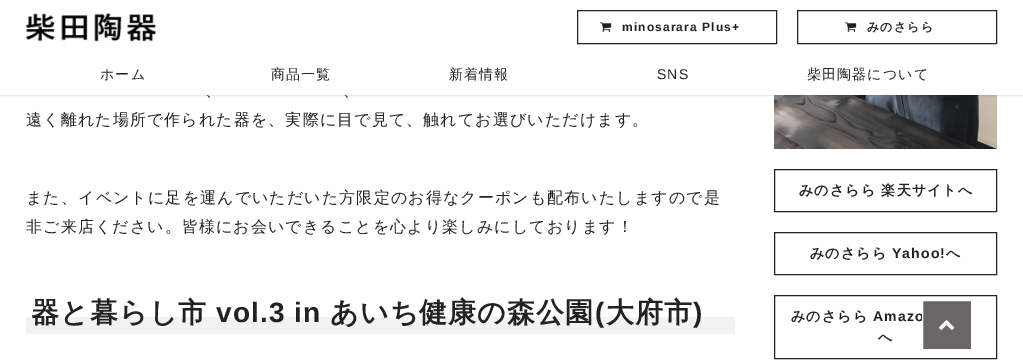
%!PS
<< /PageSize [1023 361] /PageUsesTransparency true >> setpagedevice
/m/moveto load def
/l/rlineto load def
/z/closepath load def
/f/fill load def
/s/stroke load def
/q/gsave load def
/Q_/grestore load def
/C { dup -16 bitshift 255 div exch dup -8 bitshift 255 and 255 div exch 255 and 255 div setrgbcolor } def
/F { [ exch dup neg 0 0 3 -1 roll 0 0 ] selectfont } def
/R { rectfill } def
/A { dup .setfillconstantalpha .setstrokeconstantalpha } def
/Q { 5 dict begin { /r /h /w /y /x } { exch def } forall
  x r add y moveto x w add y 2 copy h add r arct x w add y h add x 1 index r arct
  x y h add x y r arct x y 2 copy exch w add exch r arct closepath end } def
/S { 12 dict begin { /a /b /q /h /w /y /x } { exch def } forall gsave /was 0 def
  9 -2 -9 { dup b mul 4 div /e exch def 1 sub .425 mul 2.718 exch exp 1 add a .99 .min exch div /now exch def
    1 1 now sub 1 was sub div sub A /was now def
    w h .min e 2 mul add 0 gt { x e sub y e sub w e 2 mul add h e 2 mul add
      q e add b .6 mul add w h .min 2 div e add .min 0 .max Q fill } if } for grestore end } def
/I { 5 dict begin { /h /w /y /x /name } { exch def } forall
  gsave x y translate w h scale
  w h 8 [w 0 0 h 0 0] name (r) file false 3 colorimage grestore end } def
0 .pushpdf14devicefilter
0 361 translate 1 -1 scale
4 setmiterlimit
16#FFFFFF C
0 0 1023 361 R
(3.rgb) 774 95 223 54 I
16#000000 C
0 1 1023 95 0 .5 .1 S
/WenQuanYiZenHei-Medium 16 F
16#222222 C
205 96 m 1.1 0 (、) ashow
343 96 m 1.1 0 (、) ashow
16#FFFFFF C
0 0 1023 95 R
(1.rgb) 25 13 131 29 I
16#222222 C
577.5 10.5 199 33 rectstroke
(2.rgb) 600 22 12 10 I
/LiberationSans-Bold 12 F
622 31 m 1.1 0 (minosarara Plus+) ashow
797.5 10.5 199 33 rectstroke
(2.rgb) 845 22 12 10 I
/WenQuanYiZenHei-Bold 12 F
867 31 m 1.1 0 (みのさらら) ashow
/WenQuanYiZenHei-Medium 14 F
100 79 m 1.1 0 (ホーム) ashow
271 79 m 1.1 0 (商品一覧) ashow
449 79 m 1.1 0 (新着情報) ashow
/LiberationSans-Regular 14 F
657 79 m 1.1 0 (SNS) ashow
/WenQuanYiZenHei-Medium 14 F
807 79 m 1.1 0 (柴田陶器について) ashow
/WenQuanYiZenHei-Medium 16 F
26 125 m 1.1 0 (遠く離れた場所で作られた器を、実際に目で見て、触れてお選びいただけます。) ashow
26 203 m 1.1 0 (また、イベントに足を運んでいただいた方限定のお得なクーポンも配布いたしますので是) ashow
26 232 m 1.1 0 (非ご来店ください。皆様にお会いできることを心より楽しみにしております！) ashow
16#F2F2F2 C
26 317 709 17 R
/WenQuanYiZenHei-Bold 28 F
16#222222 C
31 322 m 1.1 0 (器と暮らし市) ashow
/LiberationSans-Bold 28 F
216 322 m 1.1 0 (vol.3 in) ashow
/WenQuanYiZenHei-Bold 28 F
330 322 m 1.1 0 (あいち健康の森公園) ashow
/LiberationSans-Bold 28 F
595 322 m 1.1 0 (\() ashow
/WenQuanYiZenHei-Bold 28 F
606 322 m 1.1 0 (大府市) ashow
/LiberationSans-Bold 28 F
693 322 m 1.1 0 (\)) ashow
774.5 169.5 222 42 rectstroke
/WenQuanYiZenHei-Bold 14 F
799 195 m 1.1 0 (みのさらら 楽天サイトへ) ashow
774.5 232.5 222 42 rectstroke
810 258 m 1.1 0 (みのさらら) ashow
/LiberationSans-Bold 14 F
892 258 m 1.1 0 (Yahoo!) ashow
/WenQuanYiZenHei-Bold 14 F
946 258 m 1.1 0 (へ) ashow
774.5 295.5 222 63 rectstroke
791 321 m 1.1 0 (みのさらら) ashow
/LiberationSans-Bold 14 F
873 321 m 1.1 0 (Amazo) ashow
/WenQuanYiZenHei-Bold 14 F
878 342 m 1.1 0 (へ) ashow
16#6D6667 C
922.5 300.5 m 49 0 l 0 49 l -49 0 l z q f Q_
16#FFFFFF C
s
(4.rgb) 939 320 15 10 I
.poppdf14devicefilter showpage
